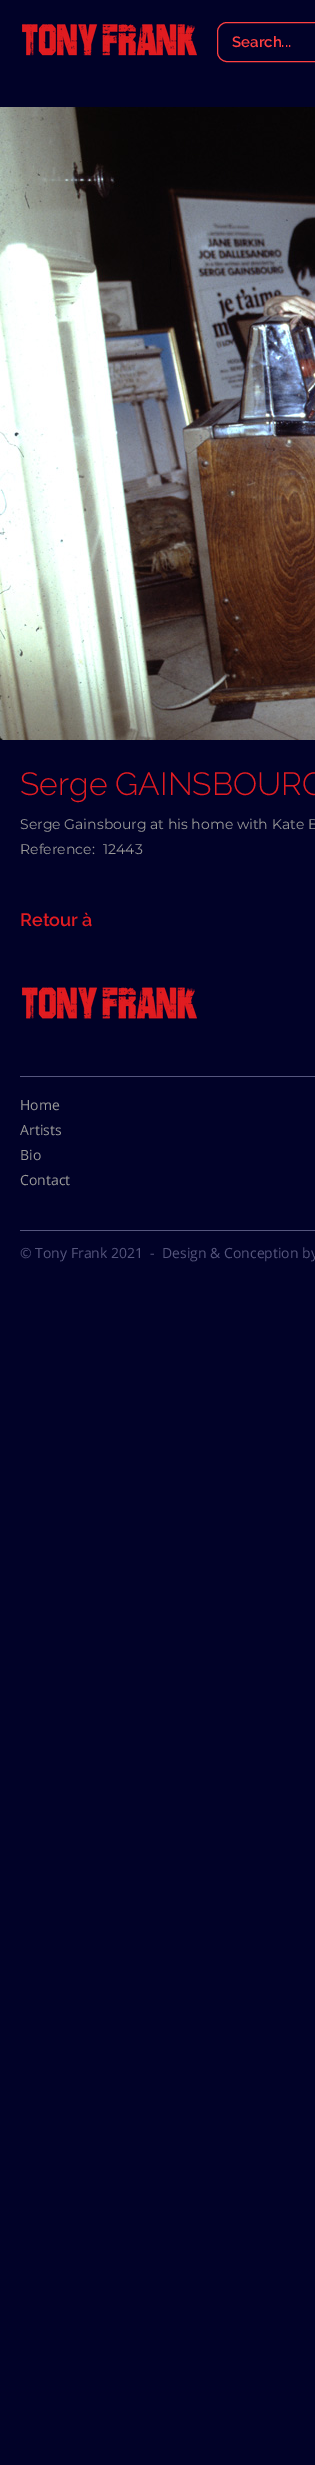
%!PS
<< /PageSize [315 2465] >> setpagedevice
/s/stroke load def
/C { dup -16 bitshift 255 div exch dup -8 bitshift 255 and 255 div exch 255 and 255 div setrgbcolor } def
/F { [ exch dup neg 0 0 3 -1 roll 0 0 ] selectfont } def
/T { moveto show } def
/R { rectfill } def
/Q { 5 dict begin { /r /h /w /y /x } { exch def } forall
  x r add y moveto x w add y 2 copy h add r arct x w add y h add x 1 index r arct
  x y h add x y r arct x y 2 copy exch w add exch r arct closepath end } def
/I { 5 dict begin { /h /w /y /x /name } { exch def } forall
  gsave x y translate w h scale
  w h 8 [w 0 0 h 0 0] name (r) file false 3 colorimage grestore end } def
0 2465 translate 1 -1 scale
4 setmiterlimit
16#010228 C
0 0 315 2465 R
(1.rgb) 22 24 175 32 I
16#FF4040 C
217.5 22.5 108 39 9.5 Q s
/Raleway-SemiBold 15 F
(Search...) 232 47 T
(2.rgb) 0 107 315 633 I
/Raleway-Light 32 F
16#E21C21 C
(Serge GAINSBOURG) 20 795 T
/Montserrat-Regular 14 F
16#999997 C
(Serge Gainsbourg at his home with Kate B) 20 829 T
(Reference:) 20 854 T
(12443) 103 854 T
/Raleway-SemiBold 18 F
16#E21C21 C
(Retour à) 20 926 T
(3.rgb) 22 987 175 32 I
16#55567E C
20 1076 295 1 R
/OpenSans-Regular 14 F
16#999997 C
(Home) 20 1110 T
(Artists) 20 1135 T
(Bio) 20 1160 T
(Contact) 20 1185 T
16#55567E C
20 1230 295 1 R
16#55557C C
(© Tony Frank 2021  -) 20 1258 T
(Design & Conception by) 162 1258 T
showpage
